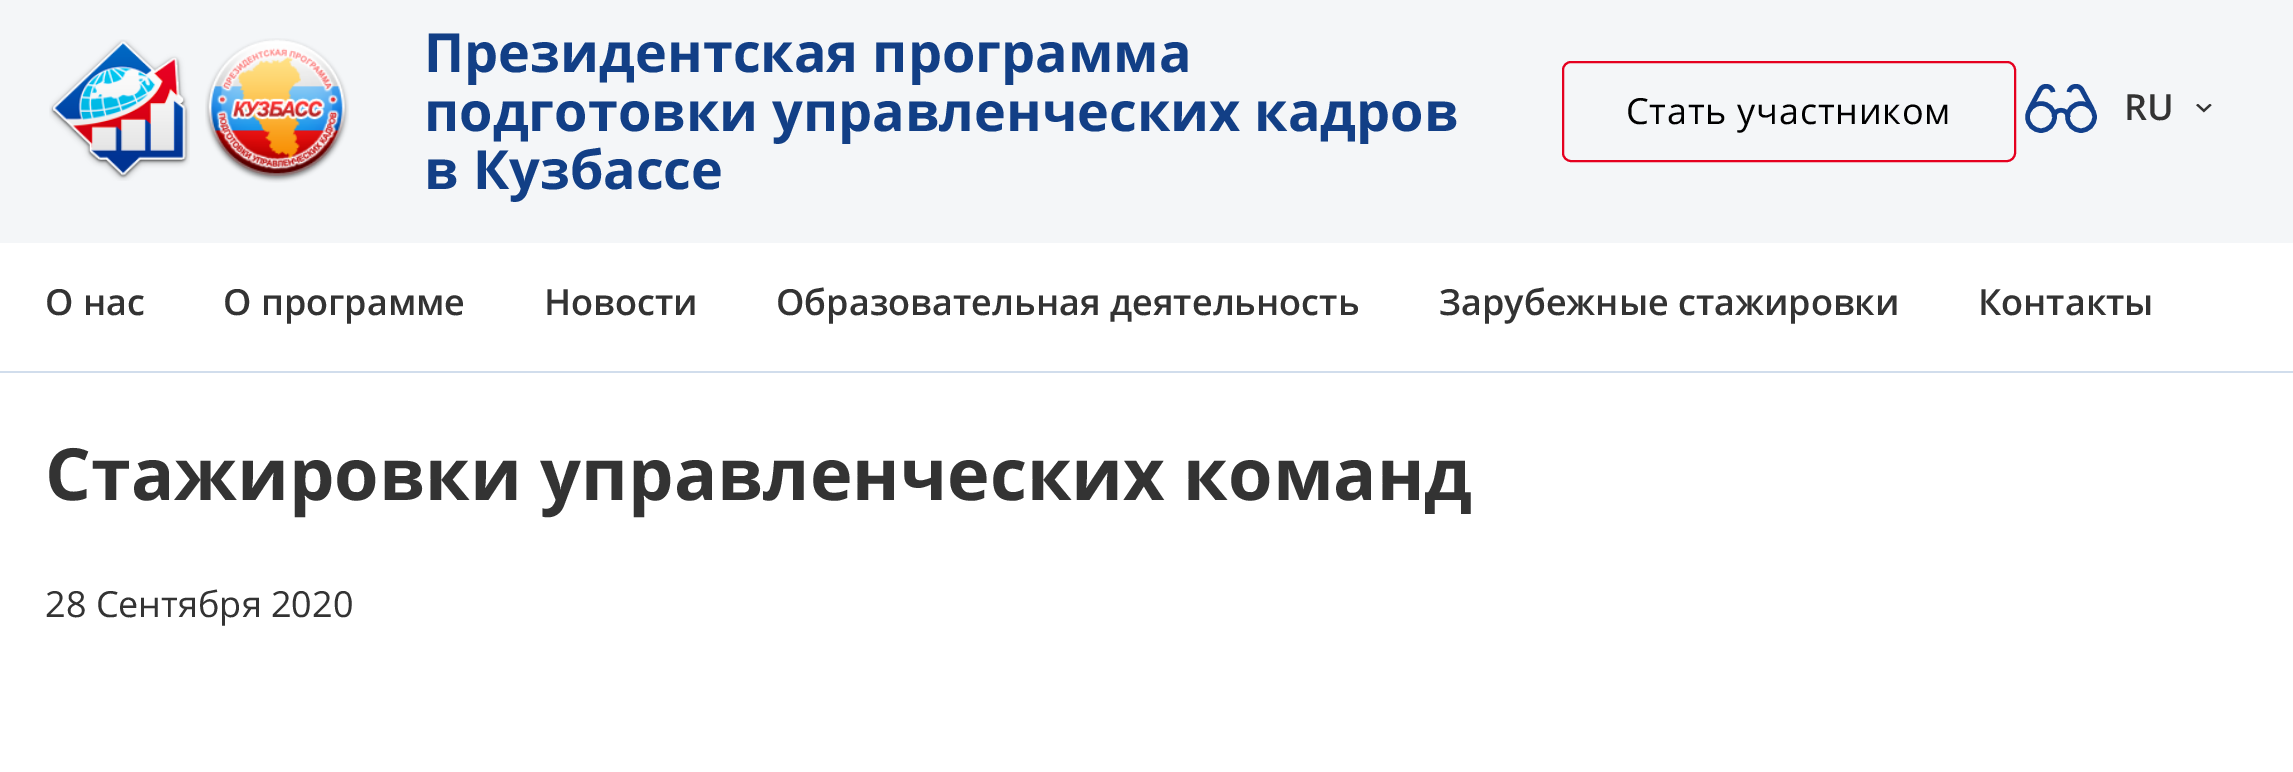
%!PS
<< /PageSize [2293 772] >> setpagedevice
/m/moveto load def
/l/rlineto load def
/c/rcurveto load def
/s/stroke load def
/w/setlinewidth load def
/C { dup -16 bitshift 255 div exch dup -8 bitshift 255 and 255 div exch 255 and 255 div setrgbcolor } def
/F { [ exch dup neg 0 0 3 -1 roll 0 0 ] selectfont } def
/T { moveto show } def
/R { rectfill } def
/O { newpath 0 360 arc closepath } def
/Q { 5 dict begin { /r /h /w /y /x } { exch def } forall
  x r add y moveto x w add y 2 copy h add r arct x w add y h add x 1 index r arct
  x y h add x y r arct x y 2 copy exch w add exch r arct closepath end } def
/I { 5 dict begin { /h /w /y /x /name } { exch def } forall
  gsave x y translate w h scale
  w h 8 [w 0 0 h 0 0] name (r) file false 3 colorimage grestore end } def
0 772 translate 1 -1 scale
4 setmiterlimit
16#FFFFFF C
0 0 2293 772 R
16#F4F6F8 C
0 0 2293 243 R
(1.rgb) 49 39 141 142 I
(2.rgb) 205 38 144 145 I
/OpenSans-Bold 54 F
16#123F86 C
(Президентская программа) 424 72 T
(подготовки управленческих кадров) 424 131 T
(в Кузбассе) 424 189 T
16#E5001F C
2 w
1563 62 452 99 8 Q s
/OpenSans-Regular 36 F
16#000000 C
1626 124 m .75 0 (Стать участником) ashow
16#12408C C
4.5 w
2041 117 13.5 O s
2068 117 m 0 -9 -14 -9 -14 0 c s
2081 117 13.5 O s
2029.5 109.5 m 10.5 -19.5 l 3 -6 12 -4.5 13 2 c s
2092.5 109.5 m -10.5 -19.5 l -3 -6 -12 -4.5 -13 2 c s
/OpenSans-SemiBold 36 F
16#333333 C
(RU) 2124 120 T
(3.rgb) 2196 104 16 9 I
16#D1DDEC C
0 371 2293 2 R
16#333333 C
(О нас) 45 315 T
(О программе) 223 315 T
(Новости) 544 315 T
(Образовательная деятельность) 776 315 T
(Зарубежные стажировки) 1439 315 T
(Контакты) 1978 315 T
/OpenSans-Bold 72 F
(Стажировки управленческих команд) 45 500 T
/OpenSans-Regular 36 F
(28 Сентября 2020) 45 617 T
showpage
